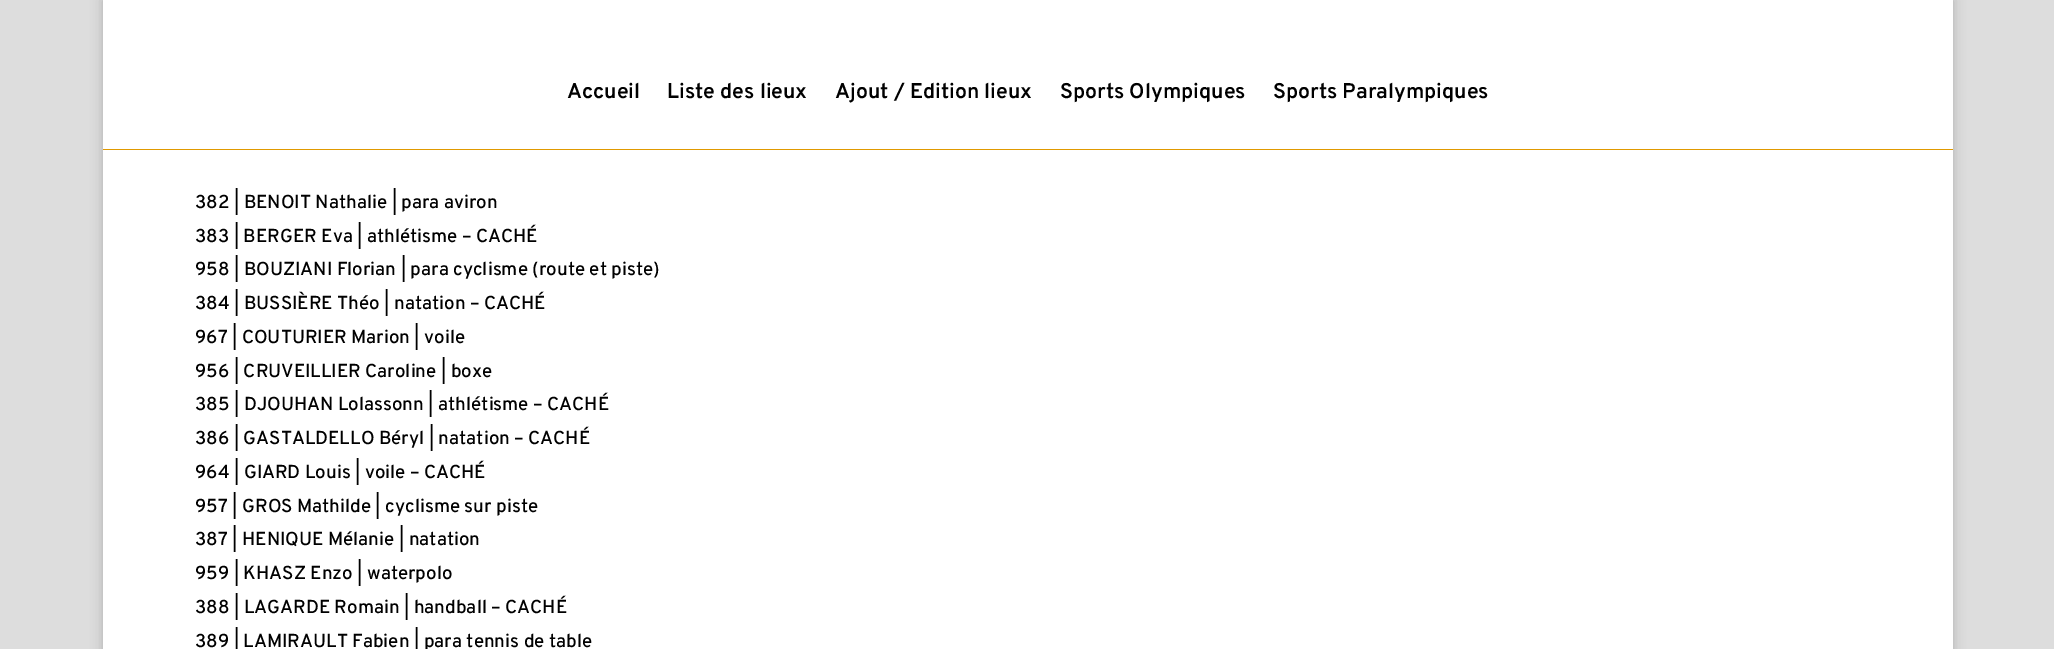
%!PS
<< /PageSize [2054 649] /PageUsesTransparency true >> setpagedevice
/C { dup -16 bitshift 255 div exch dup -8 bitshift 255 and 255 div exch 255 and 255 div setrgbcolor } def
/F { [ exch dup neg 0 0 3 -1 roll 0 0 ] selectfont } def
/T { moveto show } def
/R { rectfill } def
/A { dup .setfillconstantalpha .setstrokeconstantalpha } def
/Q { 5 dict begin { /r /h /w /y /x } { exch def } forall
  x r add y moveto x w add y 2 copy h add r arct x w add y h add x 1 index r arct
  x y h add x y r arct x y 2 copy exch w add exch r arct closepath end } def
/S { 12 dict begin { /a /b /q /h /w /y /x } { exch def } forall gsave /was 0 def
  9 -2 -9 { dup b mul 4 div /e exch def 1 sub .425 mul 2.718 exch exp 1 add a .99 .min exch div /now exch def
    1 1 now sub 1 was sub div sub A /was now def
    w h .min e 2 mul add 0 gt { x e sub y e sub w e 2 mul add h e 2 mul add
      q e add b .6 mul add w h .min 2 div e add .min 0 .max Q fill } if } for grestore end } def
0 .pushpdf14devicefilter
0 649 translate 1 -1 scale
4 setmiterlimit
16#DDDDDD C
0 0 2054 649 R
16#000000 C
103 0 1850 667 0 6 .2 S
16#FFFFFF C
103 0 1850 649 R
16#E09900 C
103 149 1850 1 R
/Overpass-SemiBold 21.25 F
16#000000 C
(Accueil) 567 98 T
(Liste des lieux) 667 98 T
(Ajout / Edition lieux) 835 98 T
(Sports Olympiques) 1060 98 T
(Sports Paralympiques) 1273 98 T
/Overpass-Medium 18.75 F
(382 | BENOIT Nathalie | para aviron) 195 208 T
(383 | BERGER Eva | athlétisme – CACHÉ) 195 242 T
(958 | BOUZIANI Florian | para cyclisme \(route et piste\)) 195 275 T
(384 | BUSSIÈRE Théo | natation – CACHÉ) 195 309 T
(967 | COUTURIER Marion | voile) 195 343 T
(956 | CRUVEILLIER Caroline | boxe) 195 377 T
(385 | DJOUHAN Lolassonn | athlétisme – CACHÉ) 195 410 T
(386 | GASTALDELLO Béryl | natation – CACHÉ) 195 444 T
(964 | GIARD Louis | voile – CACHÉ) 195 478 T
(957 | GROS Mathilde | cyclisme sur piste) 195 512 T
(387 | HENIQUE Mélanie | natation) 195 545 T
(959 | KHASZ Enzo | waterpolo) 195 579 T
(388 | LAGARDE Romain | handball – CACHÉ) 195 613 T
(389 | LAMIRAULT Fabien | para tennis de table) 195 647 T
.poppdf14devicefilter showpage
